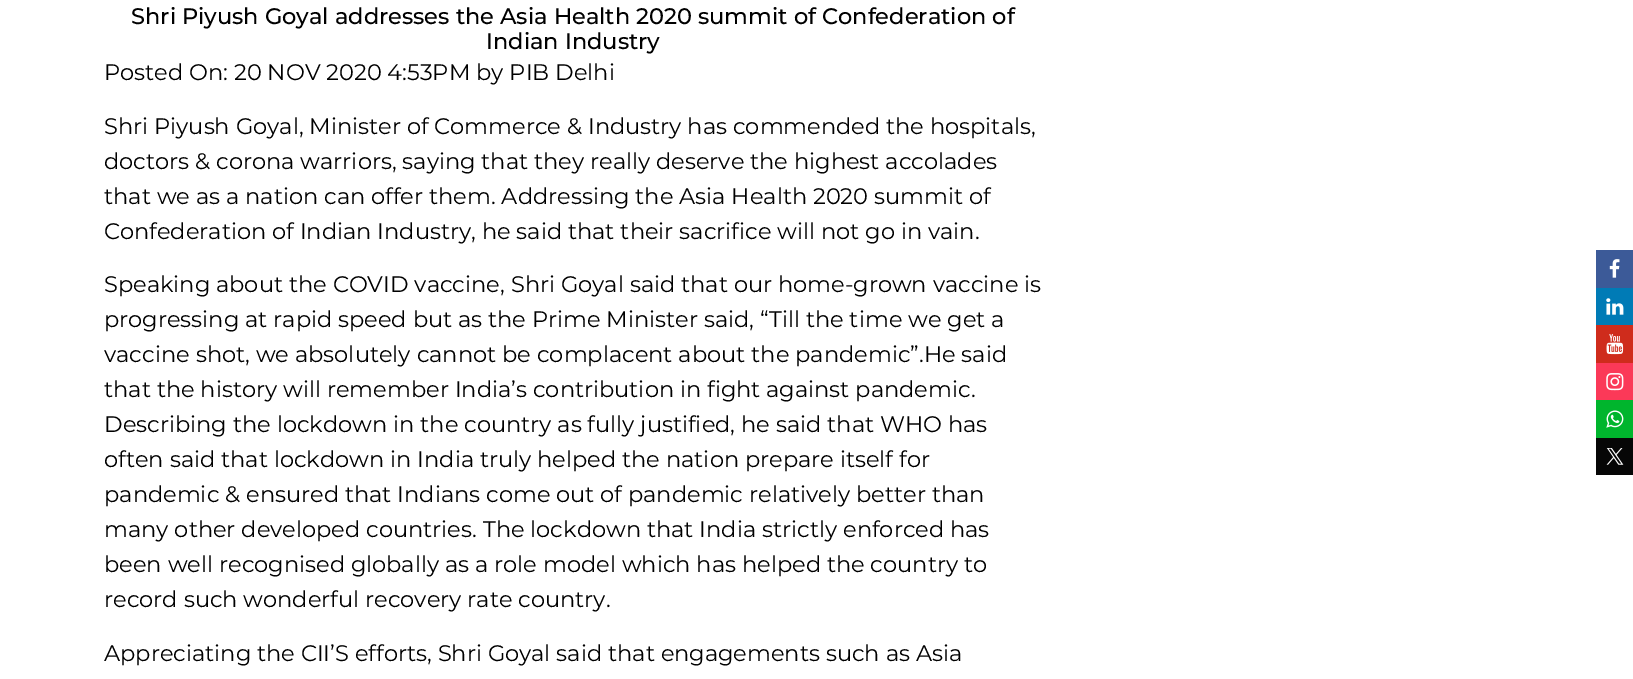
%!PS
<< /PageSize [1633 679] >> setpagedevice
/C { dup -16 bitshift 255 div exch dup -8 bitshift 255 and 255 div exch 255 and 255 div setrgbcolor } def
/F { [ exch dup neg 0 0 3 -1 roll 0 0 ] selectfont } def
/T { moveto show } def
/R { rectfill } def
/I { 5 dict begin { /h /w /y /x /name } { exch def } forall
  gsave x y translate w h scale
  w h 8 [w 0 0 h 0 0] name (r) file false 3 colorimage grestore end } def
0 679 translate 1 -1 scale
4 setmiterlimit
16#FFFFFF C
0 0 1633 679 R
/Montserrat-Medium 22.5 F
16#000000 C
(Shri Piyush Goyal addresses the Asia Health 2020 summit of Confederation of) 131 24 T
(Indian Industry) 486 49 T
/Montserrat-Regular 22.5 F
(Posted On: 20 NOV 2020 4:53PM by PIB Delhi) 104 80 T
(Shri Piyush Goyal, Minister of Commerce & Industry has commended the hospitals,) 104 134 T
(doctors & corona warriors, saying that they really deserve the highest accolades) 104 169 T
(that we as a nation can offer them. Addressing the Asia Health 2020 summit of) 104 204 T
(Confederation of Indian Industry, he said that their sacrifice will not go in vain.) 104 239 T
(Speaking about the COVID vaccine, Shri Goyal said that our home-grown vaccine is) 104 292 T
(progressing at rapid speed but as the Prime Minister said, “Till the time we get a) 104 327 T
(vaccine shot, we absolutely cannot be complacent about the pandemic”.He said) 104 362 T
(that the history will remember India’s contribution in fight against pandemic.) 104 397 T
(Describing the lockdown in the country as fully justified, he said that WHO has) 104 432 T
(often said that lockdown in India truly helped the nation prepare itself for) 104 467 T
(pandemic & ensured that Indians come out of pandemic relatively better than) 104 502 T
(many other developed countries. The lockdown that India strictly enforced has) 104 537 T
(been well recognised globally as a role model which has helped the country to) 104 572 T
(record such wonderful recovery rate country.) 104 607 T
(Appreciating the CII’S efforts, Shri Goyal said that engagements such as Asia) 104 661 T
16#3C5A98 C
1596 250 37 38 R
(1.rgb) 1609 259 11 19 I
16#007BB6 C
1596 288 37 37 R
(2.rgb) 1606 298 18 17 I
16#CF2C1C C
1596 325 37 38 R
(3.rgb) 1606 334 18 21 I
16#FB3958 C
1596 363 37 37 R
(4.rgb) 1606 373 18 18 I
16#00B52D C
1596 400 37 38 R
(5.rgb) 1606 410 18 18 I
16#060606 C
1596 438 37 37 R
(6.rgb) 1606 448 18 17 I
showpage
